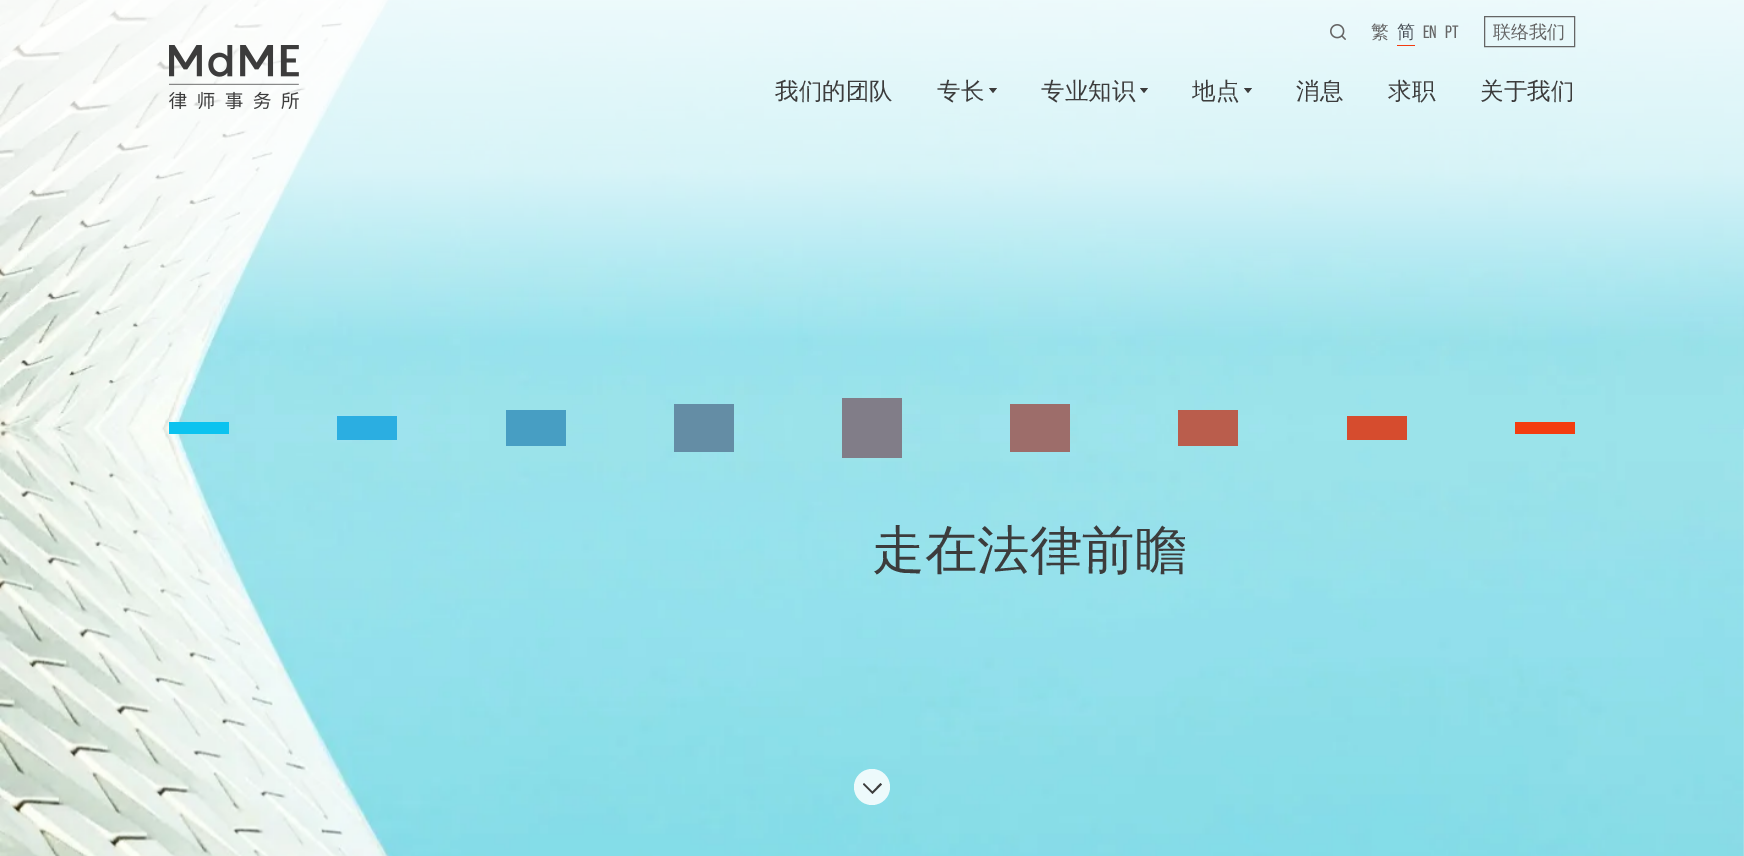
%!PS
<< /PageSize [1744 856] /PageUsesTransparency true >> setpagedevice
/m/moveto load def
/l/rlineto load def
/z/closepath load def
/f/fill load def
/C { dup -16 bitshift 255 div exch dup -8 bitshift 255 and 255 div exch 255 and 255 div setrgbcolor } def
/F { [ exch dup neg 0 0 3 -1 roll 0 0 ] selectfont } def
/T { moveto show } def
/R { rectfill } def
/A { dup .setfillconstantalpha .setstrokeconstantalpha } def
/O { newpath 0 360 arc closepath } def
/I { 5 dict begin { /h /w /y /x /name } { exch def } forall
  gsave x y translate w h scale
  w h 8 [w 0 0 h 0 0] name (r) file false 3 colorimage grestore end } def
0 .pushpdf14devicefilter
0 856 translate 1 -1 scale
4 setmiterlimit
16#FFFFFF C
0 0 1744 856 R
(3.rgb) 0 0 1744 429 I
(1.rgb) 169 45 130 64 I
(2.rgb) 1330 24 16 16 I
/WenQuanYiZenHei-Medium 18 F
16#656565 C
(繁) 1371 38 T
16#495057 C
(简) 1397 38 T
16#F33C10 C
1397 45 18 1 R
/BebasNeue-Regular 18 F
16#656565 C
(EN) 1423 38 T
(PT) 1445 38 T
1484.5 16.5 90 30 rectstroke
/WenQuanYiZenHei-Medium 18 F
(联络我们) 1493 38 T
/WenQuanYiZenHei-Medium 23.5 F
16#3C3C3C C
(我们的团队) 775 99 T
(专长) 937 99 T
989 88 m 8 0 l -4 5 l z f
(专业知识) 1041 99 T
1140 88 m 8 0 l -4 5 l z f
(地点) 1192 99 T
1244 88 m 8 0 l -4 5 l z f
(消息) 1296 99 T
(求职) 1388 99 T
(关于我们) 1480 99 T
(4.rgb) 0 428 1744 428 I
16#0CC3EF C
169 422 60 12 R
16#2BAEE1 C
337 416 60 24 R
16#479EC3 C
506 410 60 36 R
16#648DA5 C
674 404 60 48 R
16#817D88 C
842 398 60 60 R
16#9D6D6A C
1010 404 60 48 R
16#BA5D4C C
1178 410 60 36 R
16#D64C2E C
1347 416 60 24 R
16#F33C10 C
1515 422 60 12 R
/WenQuanYiZenHei-Medium 52.5 F
16#3C3C3C C
(走在法律前瞻) 872 568 T
0.85 A
16#FFFFFF C
872 787 18 O f
1 A
16#3C3C3C C
880.5 783 m 1.5 1.5 l -9.5 9.5 l -9.5 -9.5 l 1 -1.5 l 8.5 8.5 l z f
.poppdf14devicefilter showpage
